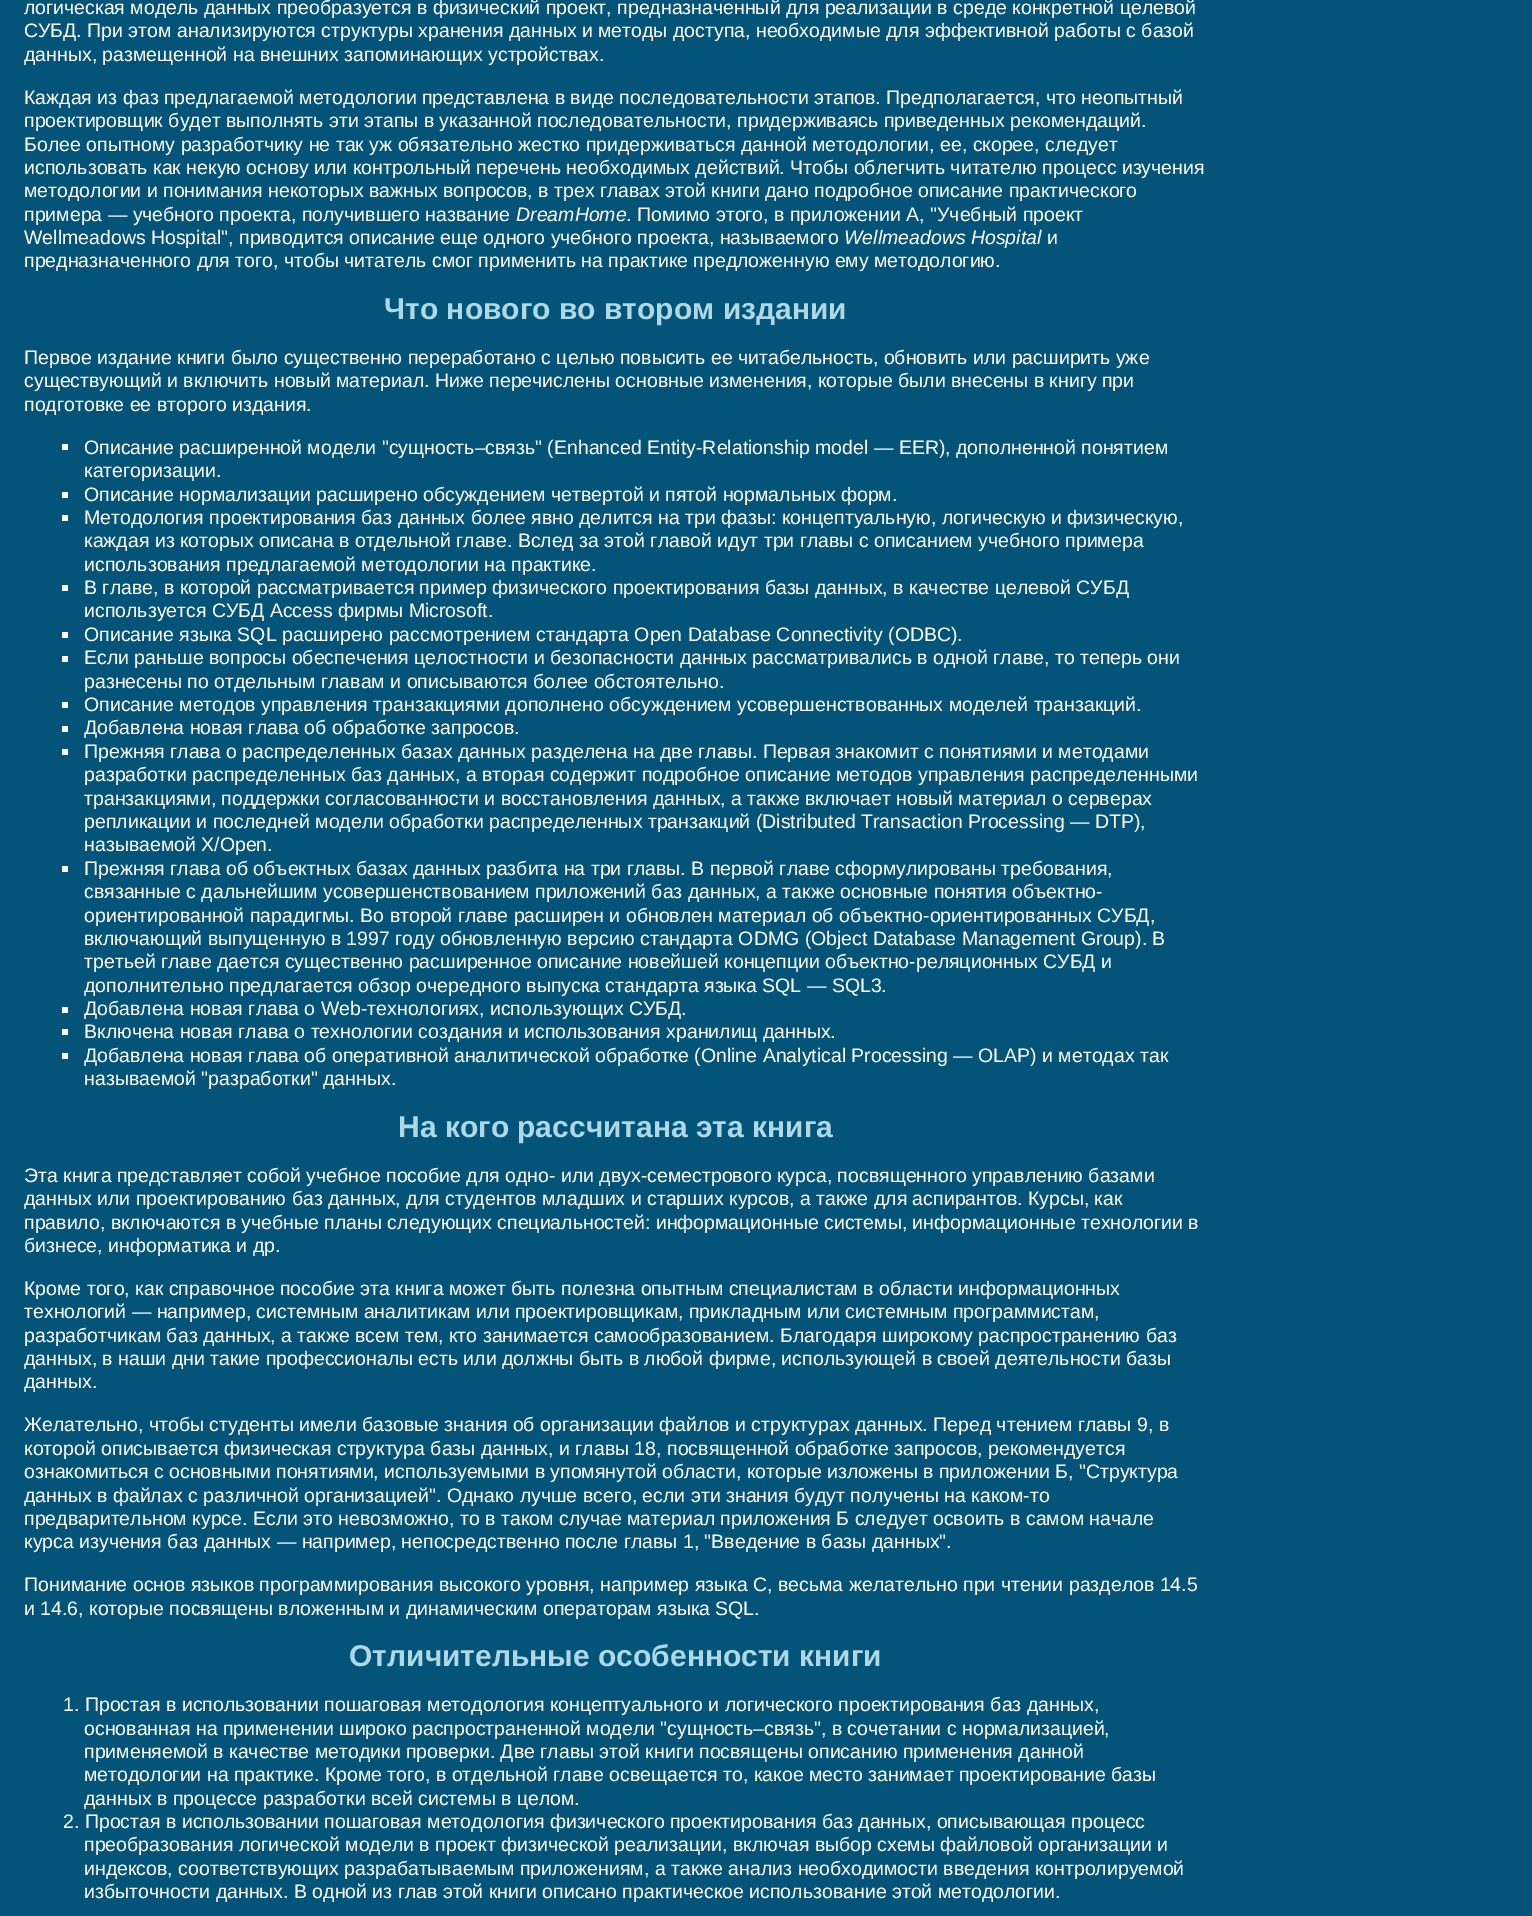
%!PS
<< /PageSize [1532 1916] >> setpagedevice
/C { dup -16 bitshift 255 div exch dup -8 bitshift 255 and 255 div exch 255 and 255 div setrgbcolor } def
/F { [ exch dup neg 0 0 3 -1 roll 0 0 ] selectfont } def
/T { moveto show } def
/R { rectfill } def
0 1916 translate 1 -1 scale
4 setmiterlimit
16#045479 C
0 0 1532 1916 R
/LiberationSans-Regular 19.5 F
16#FFFFFF C
(логическая модель данных преобразуется в физический проект, предназначенный для реализации в среде конкретной целевой) 24 14 T
(СУБД. При этом анализируются структуры хранения данных и методы доступа, необходимые для эффективной работы с базой) 24 37 T
(данных, размещенной на внешних запоминающих устройствах.) 24 61 T
(Каждая из фаз предлагаемой методологии представлена в виде последовательности этапов. Предполагается, что неопытный) 24 104 T
(проектировщик будет выполнять эти этапы в указанной последовательности, придерживаясь приведенных рекомендаций.) 24 127 T
(Более опытному разработчику не так уж обязательно жестко придерживаться данной методологии, ее, скорее, следует) 24 151 T
(использовать как некую основу или контрольный перечень необходимых действий. Чтобы облегчить читателю процесс изучения) 24 174 T
(методологии и понимания некоторых важных вопросов, в трех главах этой книги дано подробное описание практического) 24 197 T
(примера — учебного проекта, получившего название) 24 221 T
/LiberationSans-Italic 19.5 F
(DreamHome) 516 221 T
/LiberationSans-Regular 19.5 F
(. Помимо этого, в приложении А, "Учебный проект) 626 221 T
(Wellmeadows Hospital", приводится описание еще одного учебного проекта, называемого) 24 244 T
/LiberationSans-Italic 19.5 F
(Wellmeadows Hospital) 844 244 T
/LiberationSans-Regular 19.5 F
(и) 1047 244 T
(предназначенного для того, чтобы читатель смог применить на практике предложенную ему методологию.) 24 267 T
/LiberationSans-Bold 30 F
16#ADD8E6 C
(Что нового во втором издании) 384 319 T
/LiberationSans-Regular 19.5 F
16#FFFFFF C
(Первое издание книги было существенно переработано с целью повысить ее читабельность, обновить или расширить уже) 24 364 T
(существующий и включить новый материал. Ниже перечислены основные изменения, которые были внесены в книгу при) 24 387 T
(подготовке ее второго издания.) 24 411 T
62 444 6 6 R
(Описание расширенной модели "сущность–связь" \(Enhanced Entity-Relationship model — EER\), дополненной понятием) 84 454 T
(категоризации.) 84 477 T
62 492 6 6 R
(Описание нормализации расширено обсуждением четвертой и пятой нормальных форм.) 84 501 T
62 515 6 6 R
(Методология проектирования баз данных более явно делится на три фазы: концептуальную, логическую и физическую,) 84 524 T
(каждая из которых описана в отдельной главе. Вслед за этой главой идут три главы с описанием учебного примера) 84 547 T
(использования предлагаемой методологии на практике.) 84 571 T
62 585 6 6 R
(В главе, в которой рассматривается пример физического проектирования базы данных, в качестве целевой СУБД) 84 594 T
(используется СУБД Access фирмы Microsoft.) 84 617 T
62 632 6 6 R
(Описание языка SQL расширено рассмотрением стандарта Open Database Connectivity \(ODBC\).) 84 641 T
62 656 6 6 R
(Если раньше вопросы обеспечения целостности и безопасности данных рассматривались в одной главе, то теперь они) 84 664 T
(разнесены по отдельным главам и описываются более обстоятельно.) 84 688 T
62 702 6 6 R
(Описание методов управления транзакциями дополнено обсуждением усовершенствованных моделей транзакций.) 84 711 T
62 726 6 6 R
(Добавлена новая глава об обработке запросов.) 84 734 T
62 749 6 6 R
(Прежняя глава о распределенных базах данных разделена на две главы. Первая знакомит с понятиями и методами) 84 758 T
(разработки распределенных баз данных, а вторая содержит подробное описание методов управления распределенными) 84 781 T
(транзакциями, поддержки согласованности и восстановления данных, а также включает новый материал о серверах) 84 805 T
(репликации и последней модели обработки распределенных транзакций \(Distributed Transaction Processing — DTP\),) 84 828 T
(называемой X/Open.) 84 851 T
62 866 6 6 R
(Прежняя глава об объектных базах данных разбита на три главы. В первой главе сформулированы требования,) 84 875 T
(связанные с дальнейшим усовершенствованием приложений баз данных, а также основные понятия объектно-) 84 898 T
(ориентированной парадигмы. Во второй главе расширен и обновлен материал об объектно-ориентированных СУБД,) 84 922 T
(включающий выпущенную в 1997 году обновленную версию стандарта ODMG \(Object Database Management Group\). В) 84 945 T
(третьей главе дается существенно расширенное описание новейшей концепции объектно-реляционных СУБД и) 84 968 T
(дополнительно предлагается обзор очередного выпуска стандарта языка SQL — SQL3.) 84 992 T
62 1007 6 6 R
(Добавлена новая глава о Web-технологиях, использующих СУБД.) 84 1015 T
62 1029 6 6 R
(Включена новая глава о технологии создания и использования хранилищ данных.) 84 1038 T
62 1053 6 6 R
(Добавлена новая глава об оперативной аналитической обработке \(Online Analytical Processing — OLAP\) и методах так) 84 1062 T
(называемой "разработки" данных.) 84 1085 T
/LiberationSans-Bold 30 F
16#ADD8E6 C
(На кого рассчитана эта книга) 398 1137 T
/LiberationSans-Regular 19.5 F
16#FFFFFF C
(Эта книга представляет собой учебное пособие для одно- или двух-семестрового курса, посвященного управлению базами) 24 1182 T
(данных или проектированию баз данных, для студентов младших и старших курсов, а также для аспирантов. Курсы, как) 24 1205 T
(правило, включаются в учебные планы следующих специальностей: информационные системы, информационные технологии в) 24 1229 T
(бизнесе, информатика и др.) 24 1252 T
(Кроме того, как справочное пособие эта книга может быть полезна опытным специалистам в области информационных) 24 1295 T
(технологий — например, системным аналитикам или проектировщикам, прикладным или системным программистам,) 24 1318 T
(разработчикам баз данных, а также всем тем, кто занимается самообразованием. Благодаря широкому распространению баз) 24 1342 T
(данных, в наши дни такие профессионалы есть или должны быть в любой фирме, использующей в своей деятельности базы) 24 1365 T
(данных.) 24 1388 T
(Желательно, чтобы студенты имели базовые знания об организации файлов и структурах данных. Перед чтением главы 9, в) 24 1431 T
(которой описывается физическая структура базы данных, и главы 18, посвященной обработке запросов, рекомендуется) 24 1455 T
(ознакомиться с основными понятиями, используемыми в упомянутой области, которые изложены в приложении Б, "Структура) 24 1478 T
(данных в файлах с различной организацией". Однако лучше всего, если эти знания будут получены на каком-то) 24 1502 T
(предварительном курсе. Если это невозможно, то в таком случае материал приложения Б следует освоить в самом начале) 24 1525 T
(курса изучения баз данных — например, непосредственно после главы 1, "Введение в базы данных".) 24 1548 T
(Понимание основ языков программирования высокого уровня, например языка С, весьма желательно при чтении разделов 14.5) 24 1591 T
(и 14.6, которые посвящены вложенным и динамическим операторам языка SQL.) 24 1615 T
/LiberationSans-Bold 30 F
16#ADD8E6 C
(Отличительные особенности книги) 349 1666 T
/LiberationSans-Regular 19.5 F
16#FFFFFF C
(1. Простая в использовании пошаговая методология концептуального и логического проектирования баз данных,) 63 1711 T
(основанная на применении широко распространенной модели "сущность–связь", в сочетании с нормализацией,) 84 1735 T
(применяемой в качестве методики проверки. Две главы этой книги посвящены описанию применения данной) 84 1758 T
(методологии на практике. Кроме того, в отдельной главе освещается то, какое место занимает проектирование базы) 84 1781 T
(данных в процессе разработки всей системы в целом.) 84 1805 T
(2. Простая в использовании пошаговая методология физического проектирования баз данных, описывающая процесс) 63 1828 T
(преобразования логической модели в проект физической реализации, включая выбор схемы файловой организации и) 84 1851 T
(индексов, соответствующих разрабатываемым приложениям, а также анализ необходимости введения контролируемой) 84 1875 T
(избыточности данных. В одной из глав этой книги описано практическое использование этой методологии.) 84 1898 T
showpage
